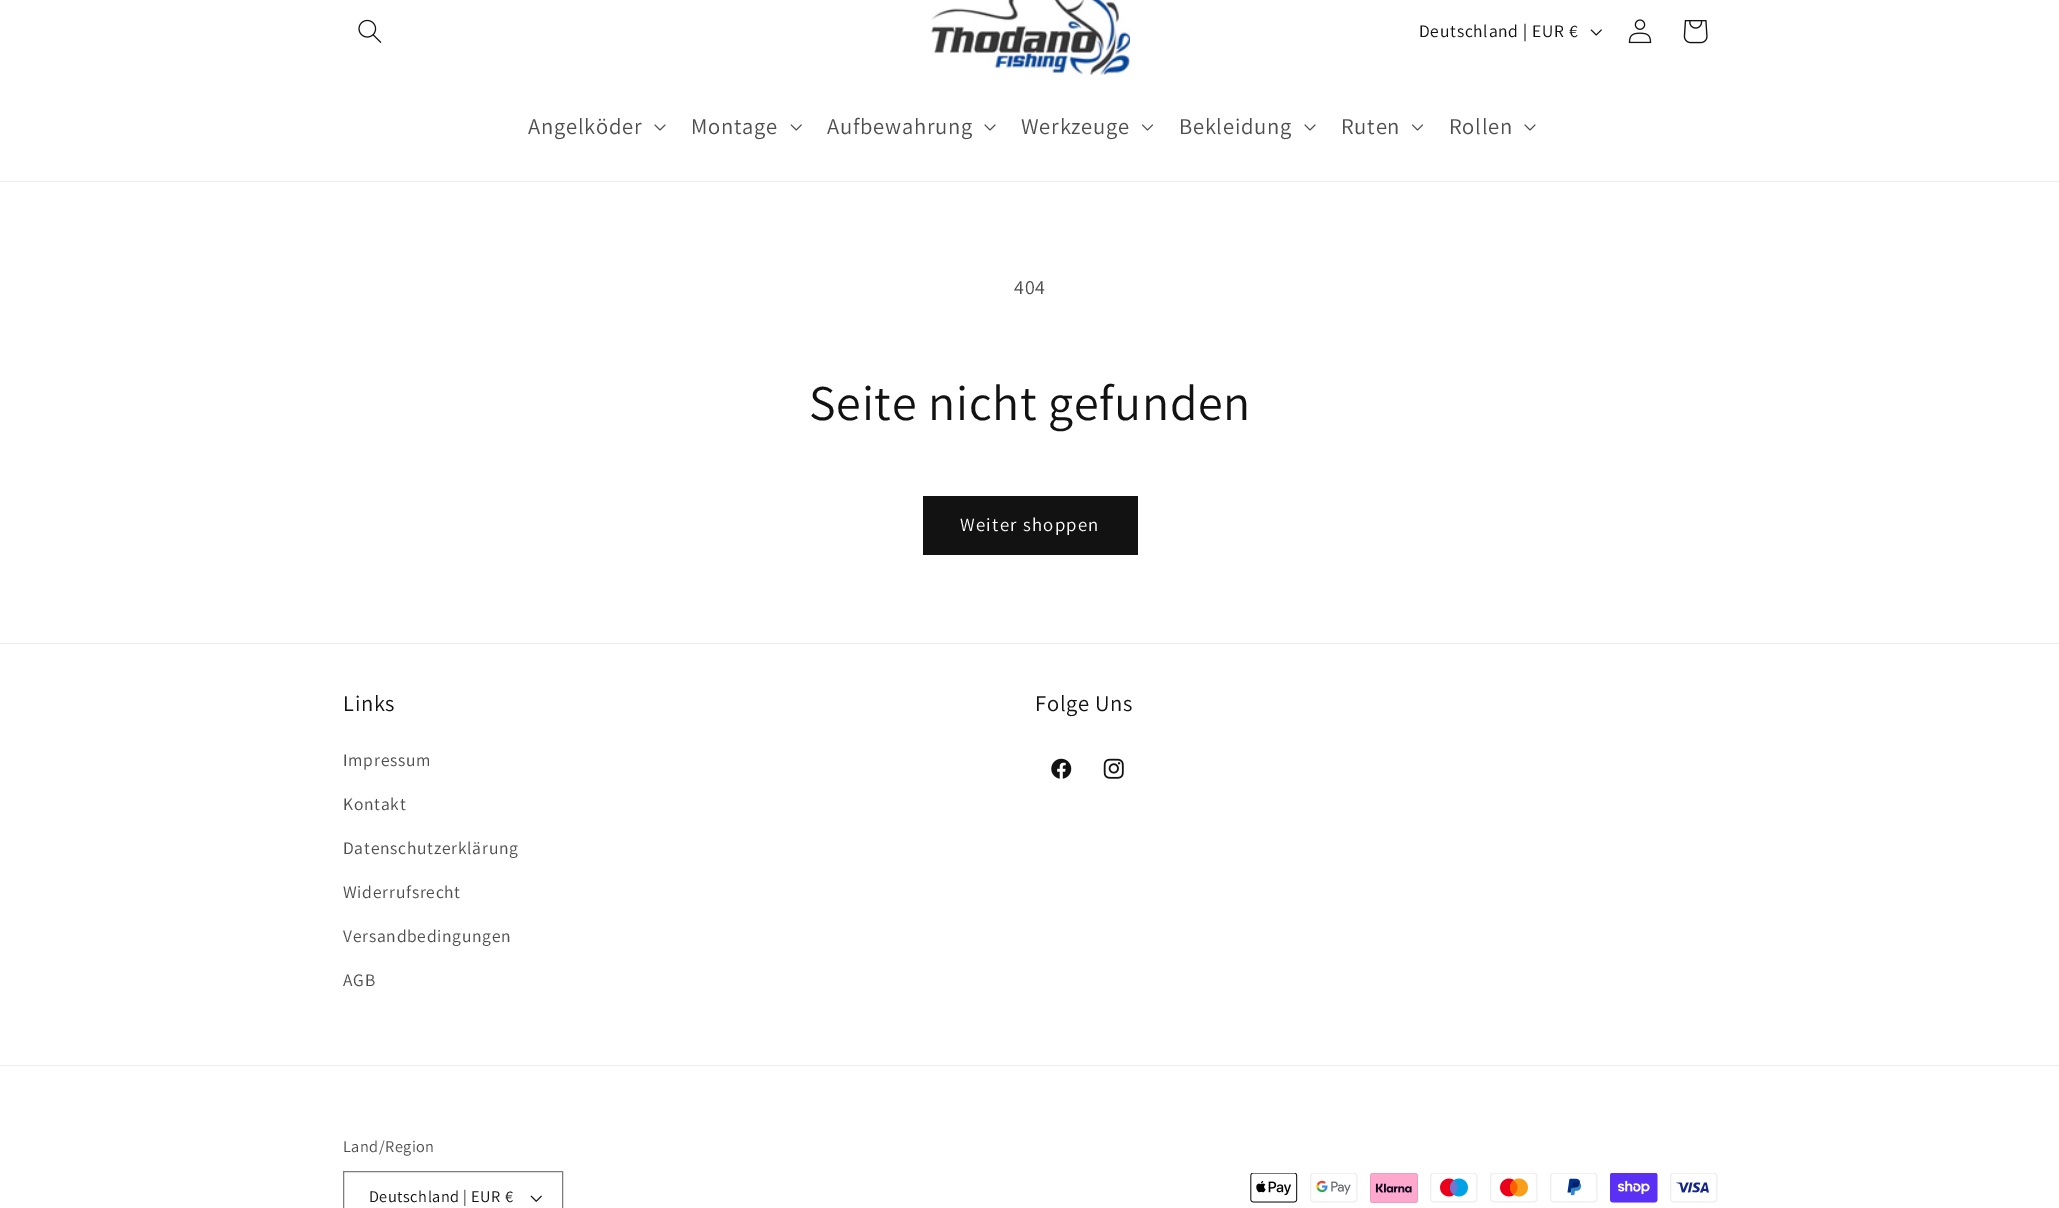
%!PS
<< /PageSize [2059 1208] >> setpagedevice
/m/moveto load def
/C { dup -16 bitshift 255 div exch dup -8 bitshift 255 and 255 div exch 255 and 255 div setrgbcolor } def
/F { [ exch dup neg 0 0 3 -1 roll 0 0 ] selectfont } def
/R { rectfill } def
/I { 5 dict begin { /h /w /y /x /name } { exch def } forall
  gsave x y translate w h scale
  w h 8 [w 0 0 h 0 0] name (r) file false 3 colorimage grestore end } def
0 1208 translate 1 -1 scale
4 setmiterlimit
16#FFFFFF C
0 0 2059 1208 R
16#ECECEC C
0 181 2059 1 R
(1.rgb) 358 19 24 24 I
(2.rgb) 930 0 200 75 I
/Assistant-Regular 17.5 F
16#121212 C
1419 37 m .75 0 (Deutschland | EUR €) ashow
(3.rgb) 1590 29 12 7 I
(4.rgb) 1628 19 24 25 I
(5.rgb) 1683 20 25 24 I
/Assistant-Regular 22.5 F
16#4D4D4D C
528 134 m .75 0 (Angelköder) ashow
(6.rgb) 654 124 12 7 I
691 134 m .75 0 (Montage) ashow
(7.rgb) 790 124 12 7 I
827 134 m .75 0 (Aufbewahrung) ashow
(6.rgb) 984 124 12 7 I
1021 134 m .75 0 (Werkzeuge) ashow
(8.rgb) 1142 124 11 7 I
1179 134 m .75 0 (Bekleidung) ashow
(6.rgb) 1304 124 12 7 I
1341 134 m .75 0 (Ruten) ashow
(8.rgb) 1412 124 11 7 I
1449 134 m .75 0 (Rollen) ashow
(6.rgb) 1524 124 12 7 I
/Assistant-Regular 20 F
1014 294 m .75 0 (404) ashow
/Assistant-Regular 50 F
16#121212 C
809 420 m .75 0 (Seite nicht gefunden) ashow
923 496 215 59 R
/Assistant-Regular 18.75 F
16#FFFFFF C
960 531 m 1.25 0 (Weiter shoppen) ashow
16#ECECEC C
0 643 2059 1 R
/Assistant-Regular 22.5 F
16#121212 C
343 711 m .75 0 (Links) ashow
/Assistant-Regular 17.5 F
16#4D4D4D C
343 766 m .75 0 (Impressum) ashow
343 810 m .75 0 (Kontakt) ashow
343 854 m .75 0 (Datenschutzerklärung) ashow
343 898 m .75 0 (Widerrufsrecht) ashow
343 942 m .75 0 (Versandbedingungen) ashow
343 986 m .75 0 (AGB) ashow
/Assistant-Regular 22.5 F
16#121212 C
1035 711 m .75 0 (Folge Uns) ashow
(9.rgb) 1051 758 21 21 I
(10.rgb) 1103 758 21 21 I
16#ECECEC C
0 1065 2059 1 R
/Assistant-Regular 16.25 F
16#4D4D4D C
343 1152 m .5 0 (Land/Region) ashow
(11.rgb) 530 1195 12 7 I
16#7D7D7D C
343.5 1171.5 219 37 rectstroke
16#121212 C
369 1202 m .5 0 (Deutschland | EUR €) ashow
(12.rgb) 1250 1173 48 30 I
(13.rgb) 1310 1173 48 30 I
(14.rgb) 1370 1173 48 30 I
(15.rgb) 1430 1173 48 30 I
(16.rgb) 1490 1173 48 30 I
(17.rgb) 1550 1173 48 30 I
(18.rgb) 1610 1173 48 30 I
(19.rgb) 1670 1173 48 30 I
showpage
